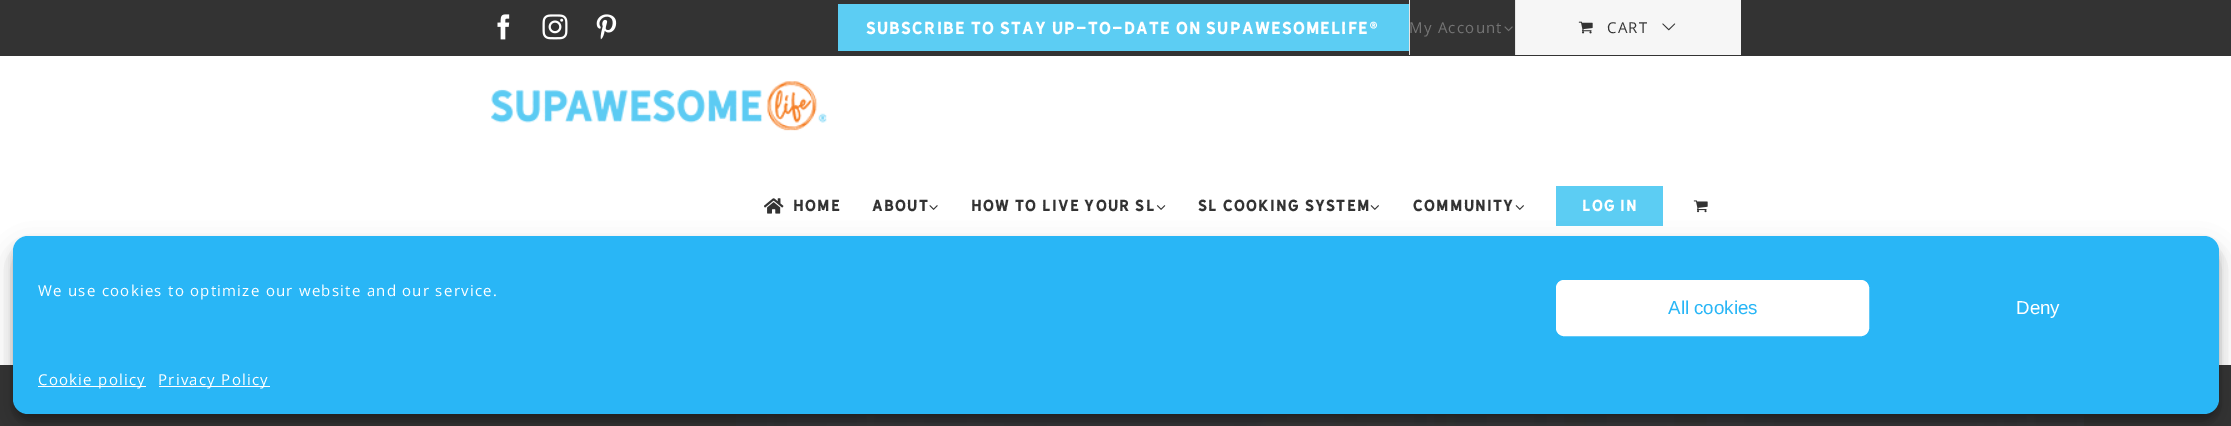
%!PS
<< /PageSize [2231 426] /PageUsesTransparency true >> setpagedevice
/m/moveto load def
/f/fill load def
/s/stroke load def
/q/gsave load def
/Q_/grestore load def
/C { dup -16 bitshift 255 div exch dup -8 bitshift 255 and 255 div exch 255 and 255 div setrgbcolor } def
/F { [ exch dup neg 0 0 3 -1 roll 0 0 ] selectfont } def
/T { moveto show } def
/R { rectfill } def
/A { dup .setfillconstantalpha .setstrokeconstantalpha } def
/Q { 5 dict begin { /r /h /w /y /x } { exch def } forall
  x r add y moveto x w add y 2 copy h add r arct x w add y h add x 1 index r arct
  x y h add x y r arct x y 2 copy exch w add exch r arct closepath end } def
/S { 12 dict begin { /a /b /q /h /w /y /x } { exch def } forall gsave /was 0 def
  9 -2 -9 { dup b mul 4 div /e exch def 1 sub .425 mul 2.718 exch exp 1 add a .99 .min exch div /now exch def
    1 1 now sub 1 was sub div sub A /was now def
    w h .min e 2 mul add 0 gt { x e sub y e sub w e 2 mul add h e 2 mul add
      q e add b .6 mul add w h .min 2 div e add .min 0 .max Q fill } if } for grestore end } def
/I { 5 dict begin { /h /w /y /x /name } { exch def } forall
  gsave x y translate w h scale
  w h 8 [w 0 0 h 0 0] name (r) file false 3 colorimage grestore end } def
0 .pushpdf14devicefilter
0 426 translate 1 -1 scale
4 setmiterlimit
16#FFFFFF C
0 0 2231 426 R
16#333333 C
0 0 2231 56 R
(1.rgb) 497 14 13 26 I
(2.rgb) 542 14 26 26 I
(3.rgb) 596 14 21 26 I
16#5CCDF3 C
838 4 571 47 R
/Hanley-Regular 16.25 F
16#FFFFFF C
866 34 m 1.25 0 (SUBSCRIBE TO STAY UP-TO-DATE ON SUPAWESOMELIFE®) ashow
16#E5E5E5 C
1409 0 1 55 R
/OpenSans-Regular 15 F
16#747474 C
1409 33 m 1.25 0 (My Account) ashow
(4.rgb) 1504 26 9 6 I
16#E5E5E5 C
1515 0 1 55 R
16#F6F6F6 C
1516 0 225 55 R
(5.rgb) 1578 21 15 13 I
16#333333 C
1607 33 m 1.25 0 (CART) ashow
(6.rgb) 1662 23 14 8 I
(7.rgb) 491 81 336 50 I
(8.rgb) 764 198 20 16 I
/Hanley-Regular 15 F
793 211 m 1.25 0 (Home) ashow
872 211 m 1.25 0 (About) ashow
(9.rgb) 929 205 9 5 I
971 211 m 1.25 0 (How to Live Your SL) ashow
(10.rgb) 1156 205 10 5 I
1198 211 m 1.25 0 (SL Cooking System) ashow
(11.rgb) 1370 205 9 5 I
1413 211 m 1.25 0 (Community) ashow
(11.rgb) 1515 205 9 5 I
16#5CCDF3 C
1556 186 107 40 R
16#FFFFFF C
1582 211 m 1.25 0 (LOG IN) ashow
(12.rgb) 1693 200 15 13 I
16#333333 C
0 365 2231 61 R
(13.rgb) 736 415 1348 11 I
16#000000 C
13 244 2206 177 15 4 .23 S
13 249 2206 177 15 12.5 .19 S
16#29B6F6 C
13 236 2206 178 15 Q f
/OpenSans-Regular 15 F
16#FFFFFF C
38 296 m 1.25 0 (We use cookies to optimize our website and our service.) ashow
1556.5 280.5 312 55 7.5 Q q f Q_
s
/LiberationSans-Regular 18.75 F
16#29B6F6 C
(All cookies) 1668 314 T
16#FFFFFF C
(Deny) 2016 314 T
38 386 108 1 R
/OpenSans-Regular 15 F
38 385 m 1.25 0 (Cookie policy) ashow
159 386 111 1 R
158 385 m 1.25 0 (Privacy Policy) ashow
.poppdf14devicefilter showpage
